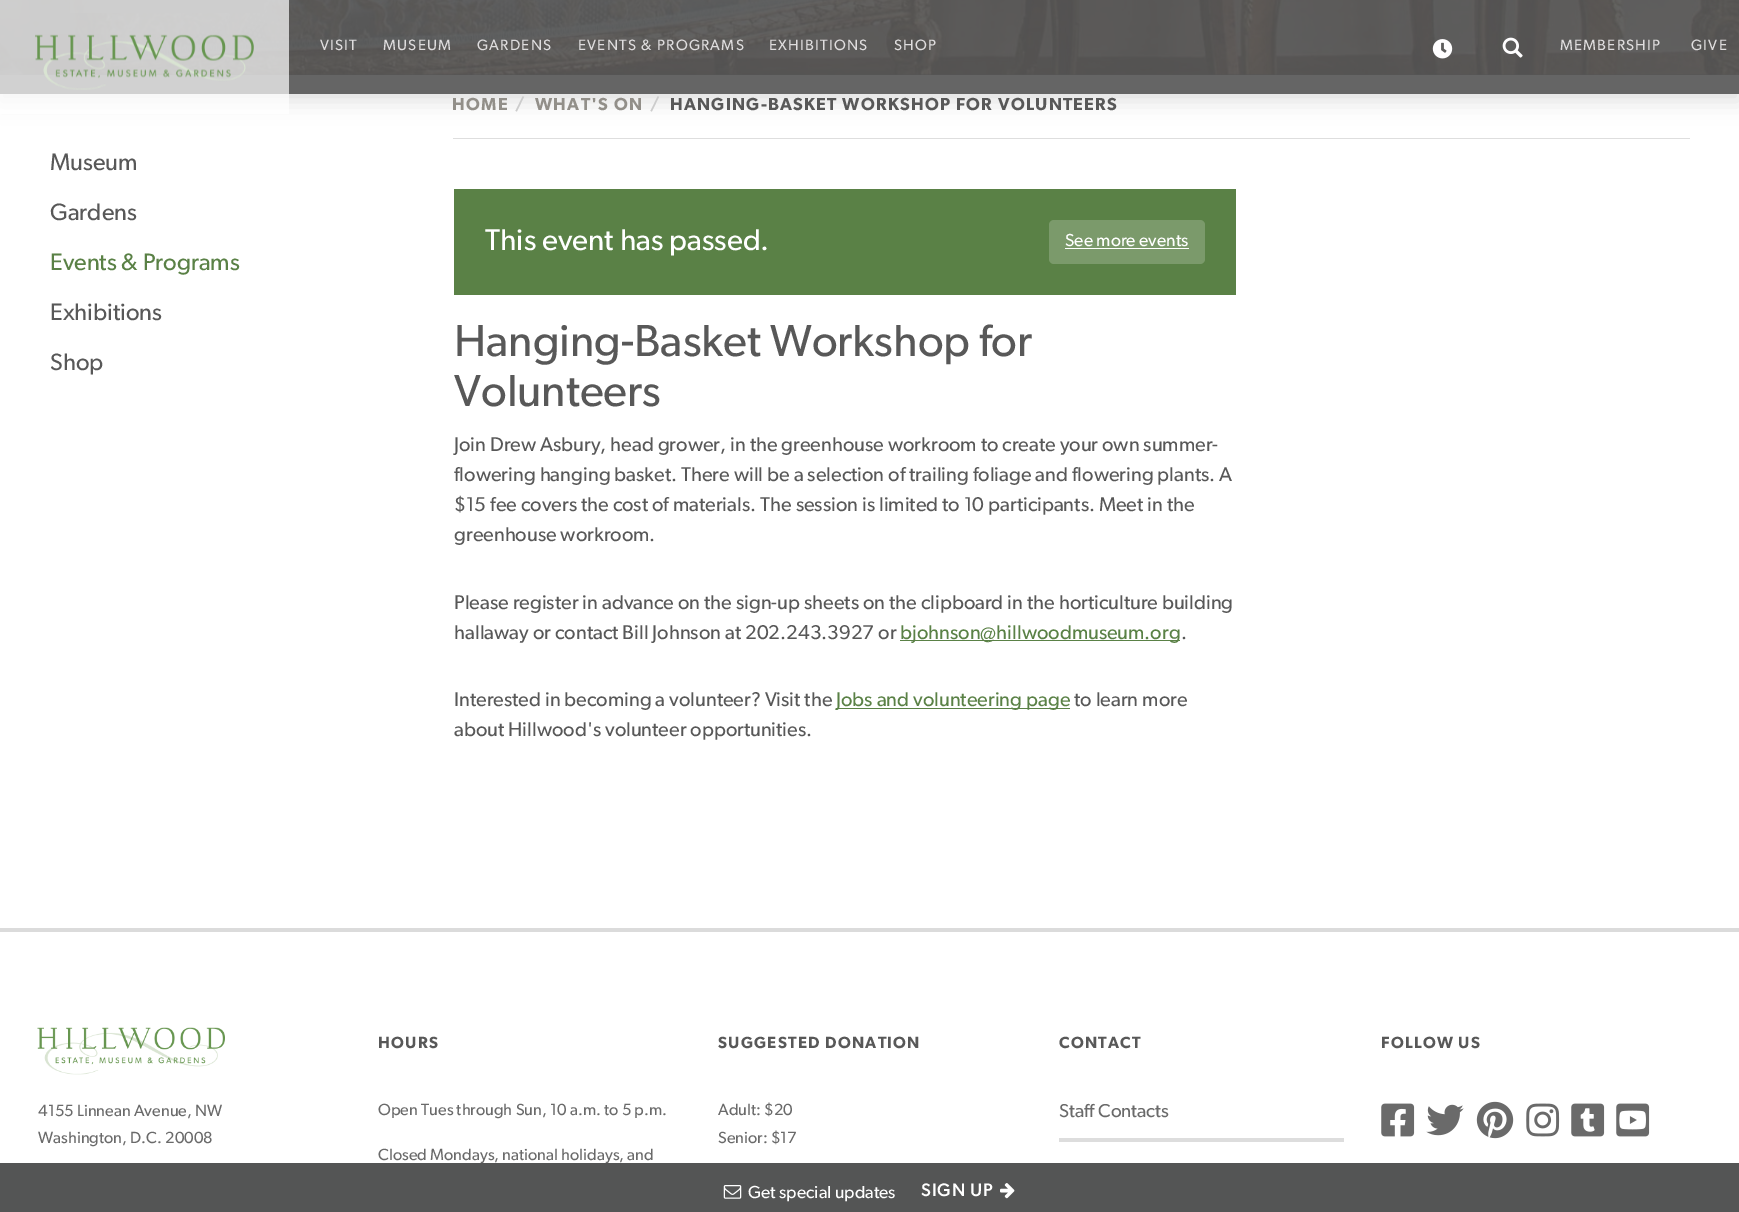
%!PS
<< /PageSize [1739 1212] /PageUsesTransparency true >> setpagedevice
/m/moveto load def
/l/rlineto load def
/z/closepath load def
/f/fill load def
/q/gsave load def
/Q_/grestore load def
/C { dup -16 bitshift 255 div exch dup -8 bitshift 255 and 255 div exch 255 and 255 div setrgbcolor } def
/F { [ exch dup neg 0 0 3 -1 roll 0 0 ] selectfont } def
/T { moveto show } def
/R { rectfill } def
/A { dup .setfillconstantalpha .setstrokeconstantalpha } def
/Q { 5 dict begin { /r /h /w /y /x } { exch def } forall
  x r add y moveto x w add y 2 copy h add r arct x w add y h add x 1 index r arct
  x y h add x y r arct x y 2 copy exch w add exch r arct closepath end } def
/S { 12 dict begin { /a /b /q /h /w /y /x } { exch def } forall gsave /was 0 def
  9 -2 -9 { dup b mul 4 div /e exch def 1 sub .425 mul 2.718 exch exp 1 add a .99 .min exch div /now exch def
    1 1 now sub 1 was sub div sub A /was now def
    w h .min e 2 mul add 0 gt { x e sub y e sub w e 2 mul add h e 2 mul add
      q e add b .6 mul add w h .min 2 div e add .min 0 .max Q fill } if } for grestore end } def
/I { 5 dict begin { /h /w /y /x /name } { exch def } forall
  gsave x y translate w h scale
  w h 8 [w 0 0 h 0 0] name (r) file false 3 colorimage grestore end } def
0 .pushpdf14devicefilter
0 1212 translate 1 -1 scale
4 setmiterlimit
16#FFFFFF C
0 0 1739 1212 R
16#4F4F4F C
0 74 1739 1 R
16#383838 C
19 74 1702 1 R
(4.rgb) 0 0 1739 75 I
0.9 A
16#646464 C
70 0 194 13 R
q
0 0 m 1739 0 l 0 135 l -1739 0 l z 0 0 m 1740 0 l 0 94 l -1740 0 l z eoclip newpath
1 A
16#000000 C
0 8 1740 93 0 11 .12 S
Q_
0.92 A
16#585858 C
0 0 1739 94 R
0.7 A
16#FFFFFF C
0 0 289 114 R
1 A
(1.rgb) 35 34 219 56 I
/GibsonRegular-Regular 15 F
16#DFDDDE C
320 50 m 1.25 0 (VISIT) ashow
383 50 m 1.25 0 (MUSEUM) ashow
477 50 m 1.25 0 (GARDENS) ashow
578 50 m 1.25 0 (EVENTS & PROGRAMS) ashow
769 50 m 1.25 0 (EXHIBITIONS) ashow
894 50 m 1.25 0 (SHOP) ashow
(2.rgb) 1432 39 21 20 I
(3.rgb) 1502 37 21 21 I
1560 50 m 1.25 0 (MEMBERSHIP) ashow
1691 50 m 1.25 0 (GIVE) ashow
16#DEDEDE C
453 138 1237 1 R
/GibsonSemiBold-Regular 17.5 F
16#928F89 C
452 110 m 1.25 0 (HOME) ashow
16#CCCCCC C
515 110 m 1.25 0 (/) ashow
16#928F89 C
535 110 m 1.25 0 (WHAT'S ON) ashow
16#CCCCCC C
650 110 m 1.25 0 (/) ashow
16#585858 C
670 110 m 1.25 0 (HANGING-BASKET WORKSHOP FOR VOLUNTEERS) ashow
/GibsonRegular-Regular 23.75 F
(Museum) 50 170 T
(Gardens) 50 220 T
16#5A8146 C
(Events & Programs) 50 270 T
16#585858 C
(Exhibitions) 50 320 T
(Shop) 50 370 T
16#5A8146 C
454 189 782 106 R
/GibsonRegular-Regular 30 F
16#FFFFFF C
(This event has passed.) 485 250 T
16#7B9A6B C
1049 220 156 44 5 Q f
/GibsonRegular-Regular 17.5 F
16#FFFFFF C
(See more events) 1065 246 T
1065 248 124 1 R
/GibsonRegular-Regular 45 F
16#585858 C
(Hanging-Basket Workshop for) 454 356 T
(Volunteers) 454 406 T
/GibsonRegular-Regular 20 F
(Join Drew Asbury, head grower, in the greenhouse workroom to create your own summer-) 454 451 T
(flowering hanging basket. There will be a selection of trailing foliage and flowering plants. A) 454 481 T
($15 fee covers the cost of materials. The session is limited to 10 participants. Meet in the) 454 511 T
(greenhouse workroom.) 454 541 T
(Please register in advance on the sign-up sheets on the clipboard in the horticulture building) 454 609 T
(hallaway or contact Bill Johnson at 202.243.3927 or) 454 639 T
16#5A8146 C
900 640 280 1 R
(bjohnson@hillwoodmuseum.org) 900 639 T
16#585858 C
(.) 1181 639 T
(Interested in becoming a volunteer? Visit the) 454 706 T
16#5A8146 C
836 708 234 1 R
(Jobs and volunteering page) 836 706 T
16#585858 C
(to learn more) 1074 706 T
(about Hillwood's volunteer opportunities.) 454 736 T
16#DBDBDB C
0 928 1739 4 R
/GibsonSemiBold-Regular 16.25 F
16#585858 C
378 1048 m 1.25 0 (HOURS) ashow
/GibsonRegular-Regular 16.25 F
16#6A6A6A C
(Open Tues through Sun, 10 a.m. to 5 p.m.) 378 1115 T
(Closed Mondays, national holidays, and) 378 1160 T
/GibsonSemiBold-Regular 16.25 F
16#585858 C
718 1048 m 1.25 0 (SUGGESTED DONATION) ashow
/GibsonRegular-Regular 16.25 F
16#6A6A6A C
(Adult: $20) 718 1115 T
(Senior: $17) 718 1143 T
/GibsonSemiBold-Regular 16.25 F
16#585858 C
1059 1048 m 1.25 0 (CONTACT) ashow
16#DDDDDD C
1059 1138 285 4 R
/GibsonRegular-Regular 18.75 F
16#6A6A6A C
(Staff Contacts) 1059 1117 T
/GibsonSemiBold-Regular 16.25 F
16#585858 C
1381 1048 m 1.25 0 (FOLLOW US) ashow
(5.rgb) 1381 1103 34 34 I
(6.rgb) 1426 1104 38 32 I
(7.rgb) 1476 1101 38 38 I
(8.rgb) 1526 1103 34 34 I
(9.rgb) 1571 1103 34 34 I
(10.rgb) 1616 1103 34 34 I
(11.rgb) 37 1027 188 48 I
/GibsonRegular-Regular 16.25 F
16#6A6A6A C
(4155 Linnean Avenue, NW) 38 1116 T
(Washington, D.C. 20008) 38 1143 T
16#545555 C
0 1163 1739 49 R
(12.rgb) 723 1185 19 14 I
/GibsonRegular-Regular 17.5 F
16#FFFFFF C
(Get special updates) 748 1198 T
/GibsonRegular-Bold 17.5 F
921 1196 m 1.25 0 (SIGN UP) ashow
(13.rgb) 1000 1183 15 16 I
.poppdf14devicefilter showpage
